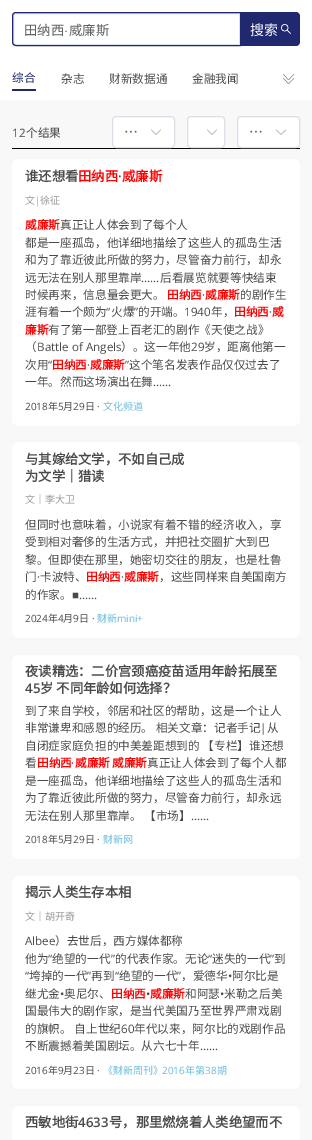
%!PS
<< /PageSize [312 1140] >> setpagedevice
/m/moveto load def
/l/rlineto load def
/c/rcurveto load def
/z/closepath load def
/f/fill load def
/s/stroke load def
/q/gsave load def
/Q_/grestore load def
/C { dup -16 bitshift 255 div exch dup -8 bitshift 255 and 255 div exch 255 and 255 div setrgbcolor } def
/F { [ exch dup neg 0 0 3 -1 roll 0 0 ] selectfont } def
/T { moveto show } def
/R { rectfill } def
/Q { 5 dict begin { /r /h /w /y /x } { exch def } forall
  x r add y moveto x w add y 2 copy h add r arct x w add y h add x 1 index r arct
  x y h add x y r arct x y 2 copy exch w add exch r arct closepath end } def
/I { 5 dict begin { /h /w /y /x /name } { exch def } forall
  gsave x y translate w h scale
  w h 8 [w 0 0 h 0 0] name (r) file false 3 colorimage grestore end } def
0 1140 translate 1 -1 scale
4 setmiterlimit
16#F8F8F8 C
0 0 312 1140 R
16#FFFFFF C
0 0 312 100 R
16#DCDFE6 C
16 13.5 m 223.5 0 l 0 31 l -223.5 0 l -1.5 0 -2.5 -1 -2.5 -2.5 c 0 -26 l 0 -1.5 1 -2.5 2.5 -2.5 c z s
16#20296F C
16 12.5 m 224.5 0 l 0 33 l -224.5 0 l -2 0 -3.5 -1.5 -3.5 -3.5 c 0 -26 l 0 -2 1.5 -3.5 3.5 -3.5 c z s
/NotoSansCJKSC-Regular 13.3 F
16#606266 C
(田纳西) 24 35 T
/LiberationSans-Regular 13.3 F
(·) 64 35 T
/NotoSansCJKSC-Regular 13.3 F
(威廉斯) 69 35 T
16#20296F C
241 12 m 55 0 l 2 0 4 2 4 4 c 0 26 l 0 2 -2 4 -4 4 c -55 0 l z f
/NotoSansCJKSC-Regular 14 F
16#FFFFFF C
(搜索) 250 35 T
(1.rgb) 281 24 10 10 I
16#20296F C
12 89 24 2 R
/NotoSansCJKSC-Regular 11.65 F
(综合) 12 82 T
16#4A4A4A C
(杂志) 61 83 T
(财新数据通) 109 83 T
(金融我闻) 192 83 T
(2.rgb) 283 74 12 10 I
16#000000 C
12 148 288 1 R
/OpenSans-Regular 11.65 F
16#4A4A4A C
(12) 12 137 T
/NotoSansCJKSC-Regular 11.65 F
(个结果) 26 137 T
16#FFFFFF C
112.5 116.5 62 31 3.5 Q q f Q_
16#DCDFE6 C
s
/NotoSansCJKSC-Regular 14 F
16#606266 C
(…) 124 137 T
(3.rgb) 151 129 10 6 I
16#FFFFFF C
187.5 116.5 37 31 3.5 Q q f Q_
16#DCDFE6 C
s
(3.rgb) 207 129 10 6 I
16#FFFFFF C
237.5 116.5 62 31 3.5 Q q f Q_
16#DCDFE6 C
s
16#606266 C
(…) 249 137 T
(3.rgb) 276 129 10 6 I
16#FFFFFF C
12 159 288 267 7 Q f
/NotoSansCJKSC-Bold 13.3 F
16#4A4A4A C
(谁还想看) 25 181 T
16#FF0000 C
(田纳西) 78 181 T
/OpenSans-SemiBold 13.3 F
16#4A4A4A C
(·) 118 181 T
/NotoSansCJKSC-Bold 13.3 F
16#FF0000 C
(威廉斯) 122 181 T
/NotoSansCJKSC-Regular 10 F
16#999999 C
(文) 25 204 T
/OpenSans-Regular 10 F
(|) 35 204 T
/NotoSansCJKSC-Regular 10 F
(徐征) 40 204 T
/NotoSansCJKSC-Bold 11.65 F
16#FF0000 C
(威廉斯) 25 229 T
/NotoSansCJKSC-Regular 11.65 F
16#4A4A4A C
(真正让人体会到了每个人) 60 229 T
(都是一座孤岛，他详细地描绘了这些人的孤岛生活) 25 247 T
(和为了靠近彼此所做的努力，尽管奋力前行，却永) 25 264 T
(远无法在别人那里靠岸) 25 282 T
/OpenSans-Regular 11.65 F
(……) 141 282 T
/NotoSansCJKSC-Regular 11.65 F
(后看展览就要等快结束) 160 282 T
(时候再来，信息量会更大。) 25 299 T
/NotoSansCJKSC-Bold 11.65 F
16#FF0000 C
(田纳西) 167 299 T
/OpenSans-Regular 11.65 F
16#4A4A4A C
(·) 202 299 T
/NotoSansCJKSC-Bold 11.65 F
16#FF0000 C
(威廉斯) 205 299 T
/NotoSansCJKSC-Regular 11.65 F
16#4A4A4A C
(的剧作生) 240 299 T
(涯有着一个颇为) 25 316 T
/OpenSans-Regular 11.65 F
(“) 106 316 T
/NotoSansCJKSC-Regular 11.65 F
(火爆) 111 316 T
/OpenSans-Regular 11.65 F
(”) 134 316 T
/NotoSansCJKSC-Regular 11.65 F
(的开端。) 138 316 T
/OpenSans-Regular 11.65 F
(1940) 184 316 T
/NotoSansCJKSC-Regular 11.65 F
(年，) 211 316 T
/NotoSansCJKSC-Bold 11.65 F
16#FF0000 C
(田纳西) 234 316 T
/OpenSans-Regular 11.65 F
16#4A4A4A C
(·) 269 316 T
/NotoSansCJKSC-Bold 11.65 F
16#FF0000 C
(威) 272 316 T
(廉斯) 25 334 T
/NotoSansCJKSC-Regular 11.65 F
16#4A4A4A C
(有了第一部登上百老汇的剧作《天使之战》) 48 334 T
(（) 25 351 T
/OpenSans-Regular 11.65 F
(Battle of Angels) 37 351 T
/NotoSansCJKSC-Regular 11.65 F
(）。这一年他) 121 351 T
/OpenSans-Regular 11.65 F
(29) 191 351 T
/NotoSansCJKSC-Regular 11.65 F
(岁，距离他第一) 204 351 T
(次用) 25 369 T
/OpenSans-Regular 11.65 F
(“) 48 369 T
/NotoSansCJKSC-Bold 11.65 F
16#FF0000 C
(田纳西) 52 369 T
(威廉斯) 90 369 T
/OpenSans-Regular 11.65 F
16#4A4A4A C
(”) 125 369 T
/NotoSansCJKSC-Regular 11.65 F
(这个笔名发表作品仅仅过去了) 129 369 T
/OpenSans-Regular 11.65 F
(·) 87 369 T
/NotoSansCJKSC-Regular 11.65 F
(一年。然而这场演出在舞) 25 386 T
/OpenSans-Regular 11.65 F
(……) 153 386 T
/OpenSans-Regular 10 F
(2018) 25 410 T
/NotoSansCJKSC-Regular 10 F
(年) 48 410 T
/OpenSans-Regular 10 F
(5) 58 410 T
/NotoSansCJKSC-Regular 10 F
(月) 63 410 T
/OpenSans-Regular 10 F
(29) 73 410 T
/NotoSansCJKSC-Regular 10 F
(日) 85 410 T
/OpenSans-Regular 10 F
(·) 97 410 T
/NotoSansCJKSC-Regular 10 F
16#68BCDE C
(文化频道) 103 410 T
16#FFFFFF C
12 442 288 196 7 Q f
/NotoSansCJKSC-Bold 13.3 F
16#4A4A4A C
(与其嫁给文学，不如自己成) 25 464 T
(为文学｜猎读) 25 481 T
/NotoSansCJKSC-Regular 10 F
16#999999 C
(文｜李大卫) 25 503 T
/NotoSansCJKSC-Regular 11.65 F
16#4A4A4A C
(但同时也意味着，小说家有着不错的经济收入，享) 25 529 T
(受到相对奢侈的生活方式，并把社交圈扩大到巴) 25 546 T
(黎。但即使在那里，她密切交往的朋友，也是杜鲁) 25 564 T
(门) 25 581 T
/OpenSans-Regular 11.65 F
(·) 37 581 T
/NotoSansCJKSC-Regular 11.65 F
(卡波特、) 40 581 T
/NotoSansCJKSC-Bold 11.65 F
16#FF0000 C
(田纳西) 86 581 T
/OpenSans-Regular 11.65 F
16#4A4A4A C
(·) 121 581 T
/NotoSansCJKSC-Bold 11.65 F
16#FF0000 C
(威廉斯) 124 581 T
/NotoSansCJKSC-Regular 11.65 F
16#4A4A4A C
(，这些同样来自美国南方) 159 581 T
(的作家。) 25 599 T
/LiberationSans-Regular 11.65 F
(■) 72 599 T
/OpenSans-Regular 11.65 F
(……) 79 599 T
/OpenSans-Regular 10 F
(2024) 25 622 T
/NotoSansCJKSC-Regular 10 F
(年) 48 622 T
/OpenSans-Regular 10 F
(4) 58 622 T
/NotoSansCJKSC-Regular 10 F
(月) 63 622 T
/OpenSans-Regular 10 F
(9) 73 622 T
/NotoSansCJKSC-Regular 10 F
(日) 79 622 T
/OpenSans-Regular 10 F
(·) 92 622 T
/NotoSansCJKSC-Regular 10 F
16#68BCDE C
(财新) 97 622 T
/OpenSans-Regular 10 F
(mini+) 117 622 T
16#FFFFFF C
12 655 288 204 7 Q f
/NotoSansCJKSC-Bold 13.3 F
16#4A4A4A C
(夜读精选：二价宫颈癌疫苗适用年龄拓展至) 25 676 T
/OpenSans-SemiBold 13.3 F
(45) 25 693 T
/NotoSansCJKSC-Bold 13.3 F
(岁 不同年龄如何选择？) 40 693 T
/NotoSansCJKSC-Regular 11.65 F
(到了来自学校，邻居和社区的帮助，这是一个让人) 25 715 T
(非常谦卑和感恩的经历。 相关文章：记者手记) 25 732 T
/OpenSans-Regular 11.65 F
(|) 260 732 T
/NotoSansCJKSC-Regular 11.65 F
(从) 267 732 T
(自闭症家庭负担的中美差距想到的 【专栏】谁还想) 25 750 T
(看) 25 767 T
/NotoSansCJKSC-Bold 11.65 F
16#FF0000 C
(田纳西) 37 767 T
/OpenSans-Regular 11.65 F
16#4A4A4A C
(·) 71 767 T
/NotoSansCJKSC-Bold 11.65 F
16#FF0000 C
(威廉斯) 75 767 T
(威廉斯) 112 767 T
/NotoSansCJKSC-Regular 11.65 F
16#4A4A4A C
(真正让人体会到了每个人都) 147 767 T
(是一座孤岛，他详细地描绘了这些人的孤岛生活和) 25 785 T
(为了靠近彼此所做的努力，尽管奋力前行，却永远) 25 802 T
(无法在别人那里靠岸。 【市场】) 25 820 T
/OpenSans-Regular 11.65 F
(……) 191 820 T
/OpenSans-Regular 10 F
(2018) 25 843 T
/NotoSansCJKSC-Regular 10 F
(年) 48 843 T
/OpenSans-Regular 10 F
(5) 58 843 T
/NotoSansCJKSC-Regular 10 F
(月) 63 843 T
/OpenSans-Regular 10 F
(29) 73 843 T
/NotoSansCJKSC-Regular 10 F
(日) 85 843 T
/OpenSans-Regular 10 F
(·) 97 843 T
/NotoSansCJKSC-Regular 10 F
16#68BCDE C
(财新网) 103 843 T
16#FFFFFF C
12 876 288 213 7 Q f
/NotoSansCJKSC-Bold 13.3 F
16#4A4A4A C
(揭示人类生存本相) 25 897 T
/NotoSansCJKSC-Regular 10 F
16#999999 C
(文｜胡开奇) 25 920 T
/OpenSans-Regular 11.65 F
16#4A4A4A C
(Albee) 25 945 T
/NotoSansCJKSC-Regular 11.65 F
(）去世后，西方媒体都称) 55 945 T
(他为) 25 963 T
/OpenSans-Regular 11.65 F
(“) 48 963 T
/NotoSansCJKSC-Regular 11.65 F
(绝望的一代) 52 963 T
/OpenSans-Regular 11.65 F
(”) 111 963 T
/NotoSansCJKSC-Regular 11.65 F
(的代表作家。无论) 115 963 T
/OpenSans-Regular 11.65 F
(“) 208 963 T
/NotoSansCJKSC-Regular 11.65 F
(迷失的一代) 212 963 T
/OpenSans-Regular 11.65 F
(”) 270 963 T
/NotoSansCJKSC-Regular 11.65 F
(到) 274 963 T
/OpenSans-Regular 11.65 F
(“) 25 980 T
/NotoSansCJKSC-Regular 11.65 F
(垮掉的一代) 29 980 T
/OpenSans-Regular 11.65 F
(”) 87 980 T
/NotoSansCJKSC-Regular 11.65 F
(再到) 91 980 T
/OpenSans-Regular 11.65 F
(“) 115 980 T
/NotoSansCJKSC-Regular 11.65 F
(绝望的一代) 119 980 T
/OpenSans-Regular 11.65 F
(”) 177 980 T
/NotoSansCJKSC-Regular 11.65 F
(，爱德华) 181 980 T
(阿尔比是) 232 980 T
/OpenSans-Regular 11.65 F
(•) 228 980 T
/NotoSansCJKSC-Regular 11.65 F
(继尤金) 25 998 T
/OpenSans-Regular 11.65 F
(•) 60 998 T
/NotoSansCJKSC-Regular 11.65 F
(奥尼尔、) 64 998 T
/NotoSansCJKSC-Bold 11.65 F
16#FF0000 C
(田纳西) 111 998 T
/OpenSans-Regular 11.65 F
16#4A4A4A C
(•) 146 998 T
/NotoSansCJKSC-Bold 11.65 F
16#FF0000 C
(威廉斯) 150 998 T
/NotoSansCJKSC-Regular 11.65 F
16#4A4A4A C
(和阿瑟) 185 998 T
/OpenSans-Regular 11.65 F
(•) 220 998 T
/NotoSansCJKSC-Regular 11.65 F
(米勒之后美) 224 998 T
(国最伟大的剧作家，是当代美国乃至世界严肃戏剧) 25 1015 T
(的旗帜。 自上世纪) 25 1033 T
/OpenSans-Regular 11.65 F
(60) 121 1033 T
/NotoSansCJKSC-Regular 11.65 F
(年代以来，阿尔比的戏剧作品) 134 1033 T
(不断震撼着美国剧坛。从六七十年) 25 1050 T
/OpenSans-Regular 11.65 F
(……) 200 1050 T
/OpenSans-Regular 10 F
(2016) 25 1074 T
/NotoSansCJKSC-Regular 10 F
(年) 48 1074 T
/OpenSans-Regular 10 F
(9) 58 1074 T
/NotoSansCJKSC-Regular 10 F
(月) 63 1074 T
/OpenSans-Regular 10 F
(23) 73 1074 T
/NotoSansCJKSC-Regular 10 F
(日) 85 1074 T
/OpenSans-Regular 10 F
(·) 97 1074 T
/NotoSansCJKSC-Regular 10 F
16#68BCDE C
(《财新周刊》) 103 1074 T
/OpenSans-Regular 10 F
(2016) 162 1074 T
/NotoSansCJKSC-Regular 10 F
(年第) 185 1074 T
/OpenSans-Regular 10 F
(38) 205 1074 T
/NotoSansCJKSC-Regular 10 F
(期) 217 1074 T
16#FFFFFF C
12 1106 288 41 7 Q f
/NotoSansCJKSC-Bold 13.3 F
16#4A4A4A C
(西敏地街) 25 1127 T
/OpenSans-SemiBold 13.3 F
(4633) 78 1127 T
/NotoSansCJKSC-Bold 13.3 F
(号，那里燃烧着人类绝望而不) 109 1127 T
showpage
